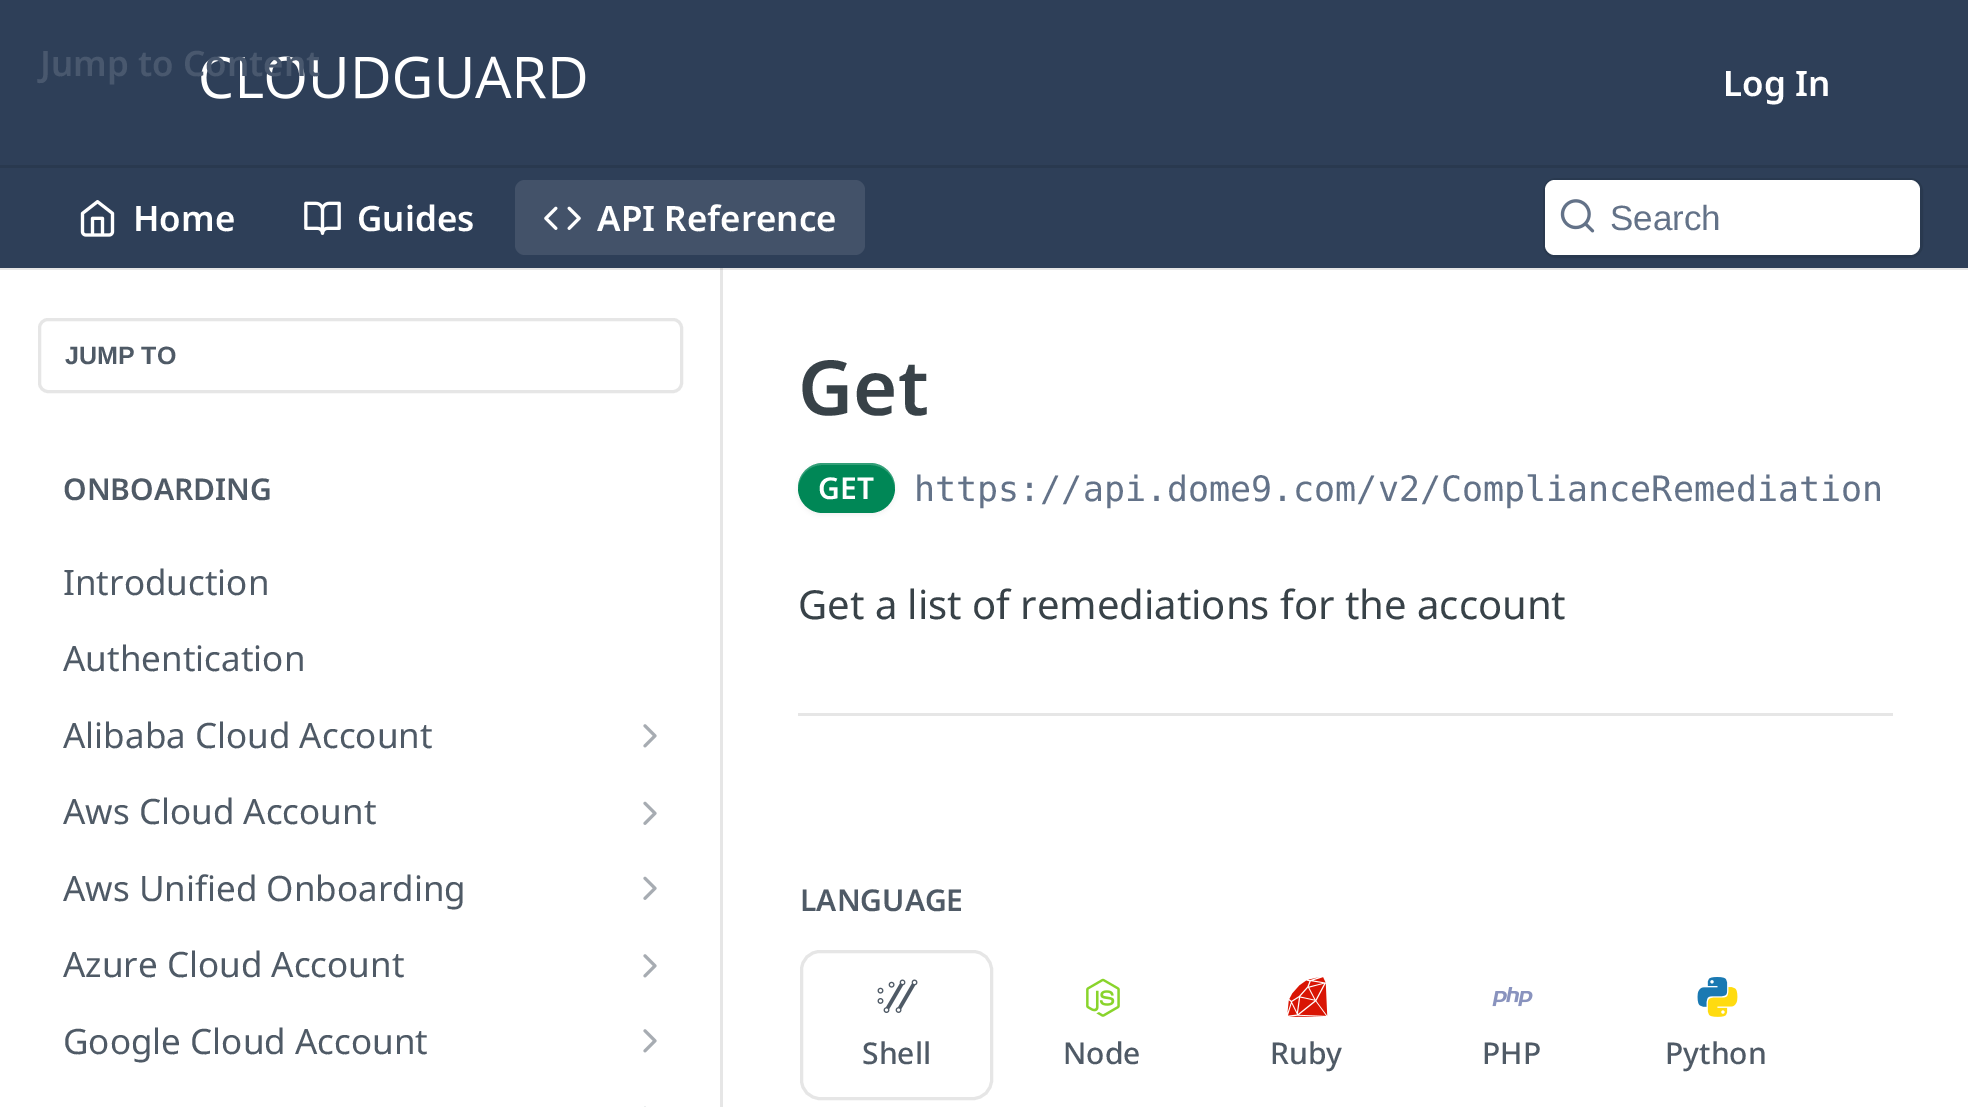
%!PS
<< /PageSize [1968 1107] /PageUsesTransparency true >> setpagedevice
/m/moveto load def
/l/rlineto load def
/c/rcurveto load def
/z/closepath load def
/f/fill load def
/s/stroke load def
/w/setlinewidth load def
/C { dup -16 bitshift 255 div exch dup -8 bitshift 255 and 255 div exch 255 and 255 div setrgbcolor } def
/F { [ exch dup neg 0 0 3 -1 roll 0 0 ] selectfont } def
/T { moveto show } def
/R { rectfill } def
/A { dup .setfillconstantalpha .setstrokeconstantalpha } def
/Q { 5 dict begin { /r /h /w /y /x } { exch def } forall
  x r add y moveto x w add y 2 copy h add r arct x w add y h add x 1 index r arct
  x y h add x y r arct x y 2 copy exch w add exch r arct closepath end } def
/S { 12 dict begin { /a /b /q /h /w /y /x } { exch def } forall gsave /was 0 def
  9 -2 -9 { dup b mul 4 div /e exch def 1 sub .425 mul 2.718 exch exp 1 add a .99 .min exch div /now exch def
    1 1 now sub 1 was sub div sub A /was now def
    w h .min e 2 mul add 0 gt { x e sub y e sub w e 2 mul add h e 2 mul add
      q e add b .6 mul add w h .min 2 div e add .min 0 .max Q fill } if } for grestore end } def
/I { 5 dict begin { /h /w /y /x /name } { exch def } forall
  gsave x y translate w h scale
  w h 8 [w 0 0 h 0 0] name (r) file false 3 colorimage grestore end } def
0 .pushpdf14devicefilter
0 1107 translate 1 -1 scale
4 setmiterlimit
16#FFFFFF C
0 0 1968 1107 R
16#E6E6E6 C
0 268 1968 2 R
16#2E3F58 C
0 0 1968 268 R
16#29394F C
0 165 1968 3 R
(1.rgb) 201 56 385 43 I
/NotoSans-SemiBold 35 F
16#49586E C
(Jump to Content) 40 76 T
16#FFFFFF C
(Log In) 1723 96 T
(2.rgb) 80 200 35 37 I
(Home) 133 231 T
(3.rgb) 304 201 37 34 I
(Guides) 357 231 T
16#435269 C
515 180 350 75 10 Q f
(4.rgb) 544 206 37 24 I
16#FFFFFF C
(API Reference) 597 231 T
16#29394F C
3 w
1544.5 179.5 377 77 11.5 Q s
16#FFFFFF C
1545 180 375 75 10 Q f
(5.rgb) 1560 199 35 34 I
/LiberationSans-Regular 35 F
16#637288 C
(Search) 1610 230 T
16#E6E6E6 C
720 268 3 839 R
16#CFCFCF C
720 268 3 2 R
16#E6E6E6 C
39.5 319.5 642 72 8.5 Q s
/LiberationSans-Bold 25 F
16#4F5A66 C
(JUMP TO) 65 364 T
/NotoSans-SemiBold 30 F
(ONBOARDING) 63 500 T
/NotoSans-Regular 35 F
(Introduction) 63 595 T
(Authentication) 63 671 T
(Alibaba Cloud Account) 63 748 T
(6.rgb) 643 724 14 24 I
(Aws Cloud Account) 63 824 T
(7.rgb) 643 801 14 24 I
(Aws Unified Onboarding) 63 901 T
(7.rgb) 643 876 14 24 I
(Azure Cloud Account) 63 977 T
(6.rgb) 643 954 14 24 I
(Google Cloud Account) 63 1054 T
(6.rgb) 643 1029 14 24 I
16#EDEFF0 C
644 1106 2 1 R
16#E6E6E6 C
798 713 1095 3 R
/NotoSans-SemiBold 76 F
16#384248 C
(Get) 798 415 T
16#000000 C
798 465 97 50 25 2.5 .05 S
16#008756 C
798 463 97 50 25 Q f
0.2 A
16#FFFFFF C
822 465 m 48 0 l 14 0 24 10 25 24 c 0 -1 l 0 -14 -11 -25 -25 -25 c -47 0 l -14 0 -25 11 -25 25 c 0 1 l 1 -14 11 -24 24 -24 c z f
/NotoSans-SemiBold 30 F
1 A
(GET) 818 499 T
/DejaVuSansMono-Regular 35 F
16#637288 C
(https://api.dome9.com/v2/ComplianceRemediation) 914 501 T
/NotoSans-Regular 40 F
16#384248 C
(Get a list of remediations for the account) 798 619 T
/NotoSans-SemiBold 30 F
16#4F5A66 C
(LANGUAGE) 800 911 T
16#E6E6E6 C
801.5 951.5 190 147 18.5 Q s
(8.rgb) 877 979 41 34 I
/NotoSans-Medium 30 F
16#4F5A66 C
(Shell) 862 1064 T
(9.rgb) 1086 978 34 39 I
(Node) 1063 1064 T
(10.rgb) 1287 977 41 40 I
(Ruby) 1270 1064 T
(11.rgb) 1492 987 41 20 I
(PHP) 1482 1064 T
(12.rgb) 1697 977 31 30 I
(13.rgb) 1707 987 31 30 I
(Python) 1665 1064 T
.poppdf14devicefilter showpage
